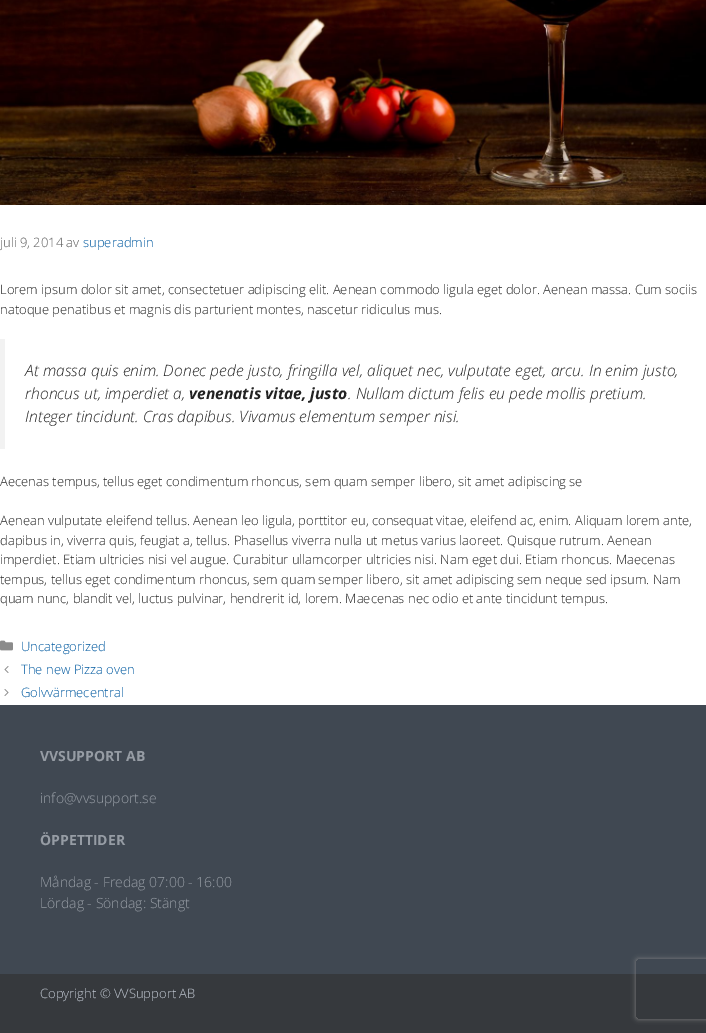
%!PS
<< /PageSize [706 1033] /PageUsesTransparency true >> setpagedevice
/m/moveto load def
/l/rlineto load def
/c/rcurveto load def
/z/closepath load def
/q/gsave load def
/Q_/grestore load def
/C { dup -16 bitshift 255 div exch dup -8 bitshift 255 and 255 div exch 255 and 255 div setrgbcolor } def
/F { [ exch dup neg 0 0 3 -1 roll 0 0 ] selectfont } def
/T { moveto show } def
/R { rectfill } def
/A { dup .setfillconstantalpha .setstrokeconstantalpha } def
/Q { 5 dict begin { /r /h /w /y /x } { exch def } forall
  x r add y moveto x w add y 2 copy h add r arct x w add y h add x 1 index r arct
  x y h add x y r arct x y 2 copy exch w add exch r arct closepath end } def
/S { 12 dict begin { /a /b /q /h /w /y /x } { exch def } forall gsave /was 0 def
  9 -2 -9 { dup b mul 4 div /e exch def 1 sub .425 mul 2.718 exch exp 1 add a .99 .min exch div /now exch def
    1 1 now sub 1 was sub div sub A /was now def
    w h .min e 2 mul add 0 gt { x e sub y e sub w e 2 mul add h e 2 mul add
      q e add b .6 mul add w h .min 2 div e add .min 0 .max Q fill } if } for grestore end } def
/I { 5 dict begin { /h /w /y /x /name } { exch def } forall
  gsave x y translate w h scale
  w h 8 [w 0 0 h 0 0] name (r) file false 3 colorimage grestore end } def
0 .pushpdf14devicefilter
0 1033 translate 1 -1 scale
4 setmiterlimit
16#404852 C
0 0 706 1033 R
16#FFFFFF C
0 205 706 500 R
(1.rgb) 0 0 706 205 I
/OpenSans-Light 13 F
16#595959 C
(juli 9, 2014 av) 0 247 T
16#00599F C
(superadmin) 83 247 T
16#222222 C
(Lorem ipsum dolor sit amet, consectetuer adipiscing elit. Aenean commodo ligula eget dolor. Aenean massa. Cum sociis) 0 294 T
(natoque penatibus et magnis dis parturient montes, nascetur ridiculus mus.) 0 314 T
16#F2F2F2 C
0 339 5 110 R
/OpenSans-LightItalic 15.6 F
16#222222 C
(At massa quis enim. Donec pede justo, fringilla vel, aliquet nec, vulputate eget, arcu. In enim justo,) 25 376 T
(rhoncus ut, imperdiet a,) 25 399 T
/OpenSans-BoldItalic 15.6 F
(venenatis vitae, justo) 189 399 T
/OpenSans-LightItalic 15.6 F
(. Nullam dictum felis eu pede mollis pretium.) 348 399 T
(Integer tincidunt. Cras dapibus. Vivamus elementum semper nisi.) 25 422 T
/OpenSans-Light 13 F
(Aecenas tempus, tellus eget condimentum rhoncus, sem quam semper libero, sit amet adipiscing se) 0 486 T
(Aenean vulputate eleifend tellus. Aenean leo ligula, porttitor eu, consequat vitae, eleifend ac, enim. Aliquam lorem ante,) 0 525 T
(dapibus in, viverra quis, feugiat a, tellus. Phasellus viverra nulla ut metus varius laoreet. Quisque rutrum. Aenean) 0 545 T
(imperdiet. Etiam ultricies nisi vel augue. Curabitur ullamcorper ultricies nisi. Nam eget dui. Etiam rhoncus. Maecenas) 0 564 T
(tempus, tellus eget condimentum rhoncus, sem quam semper libero, sit amet adipiscing sem neque sed ipsum. Nam) 0 584 T
(quam nunc, blandit vel, luctus pulvinar, hendrerit id, lorem. Maecenas nec odio et ante tincidunt tempus.) 0 603 T
(2.rgb) 0 640 13 11 I
16#00599F C
(Uncategorized) 21 651 T
(3.rgb) 4 666 5 7 I
(The new Pizza oven) 21 674 T
(4.rgb) 4 689 5 7 I
(Golvvärmecentral) 21 697 T
/OpenSans-Bold 14 F
16#969CA4 C
(VVSUPPORT AB) 40 761 T
/OpenSans-Light 14 F
(info@vvsupport.se) 40 803 T
/OpenSans-Bold 14 F
(ÖPPETTIDER) 40 845 T
/OpenSans-Light 14 F
(Måndag - Fredag 07:00 - 16:00) 40 887 T
(Lördag - Söndag: Stängt) 40 908 T
16#36393D C
0 974 706 59 R
/OpenSans-Light 13 F
16#C0C7D1 C
(Copyright © VVSupport AB) 40 998 T
q
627 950 m 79 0 l 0 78 l -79 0 l z 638 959 m 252 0 l 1 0 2 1 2 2 c 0 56 l 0 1 -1 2 -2 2 c -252 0 l -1 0 -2 -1 -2 -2 c 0 -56 l 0 -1 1 -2 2 -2 c z eoclip newpath
16#808080 C
636 959 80 60 2 2.5 1 S
Q_
.poppdf14devicefilter showpage
